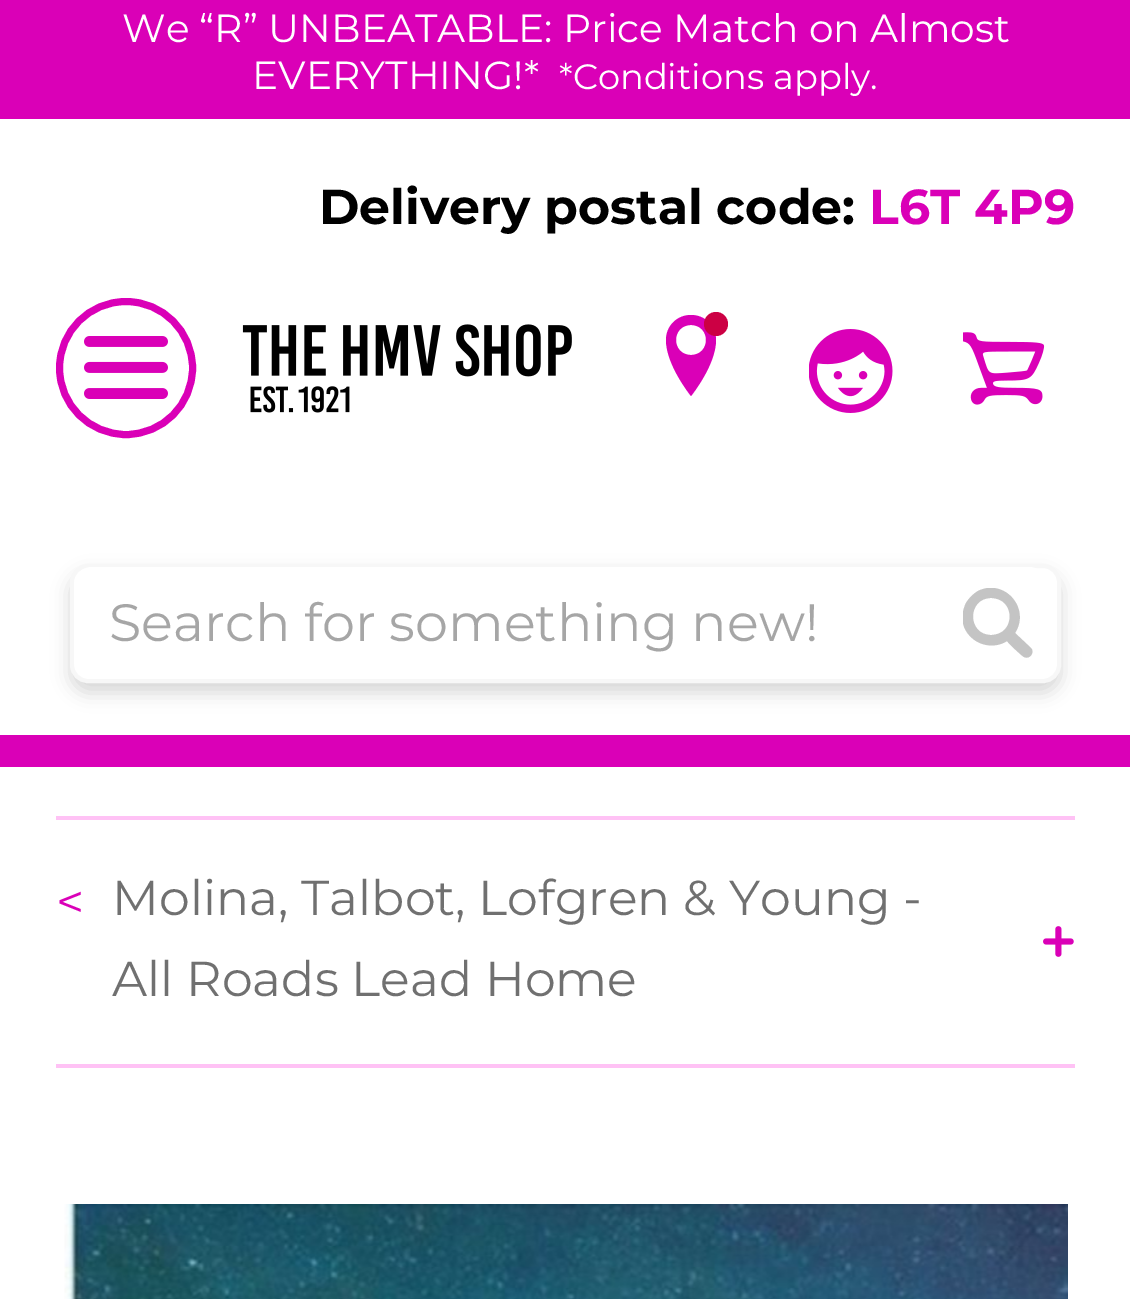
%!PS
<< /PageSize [1130 1299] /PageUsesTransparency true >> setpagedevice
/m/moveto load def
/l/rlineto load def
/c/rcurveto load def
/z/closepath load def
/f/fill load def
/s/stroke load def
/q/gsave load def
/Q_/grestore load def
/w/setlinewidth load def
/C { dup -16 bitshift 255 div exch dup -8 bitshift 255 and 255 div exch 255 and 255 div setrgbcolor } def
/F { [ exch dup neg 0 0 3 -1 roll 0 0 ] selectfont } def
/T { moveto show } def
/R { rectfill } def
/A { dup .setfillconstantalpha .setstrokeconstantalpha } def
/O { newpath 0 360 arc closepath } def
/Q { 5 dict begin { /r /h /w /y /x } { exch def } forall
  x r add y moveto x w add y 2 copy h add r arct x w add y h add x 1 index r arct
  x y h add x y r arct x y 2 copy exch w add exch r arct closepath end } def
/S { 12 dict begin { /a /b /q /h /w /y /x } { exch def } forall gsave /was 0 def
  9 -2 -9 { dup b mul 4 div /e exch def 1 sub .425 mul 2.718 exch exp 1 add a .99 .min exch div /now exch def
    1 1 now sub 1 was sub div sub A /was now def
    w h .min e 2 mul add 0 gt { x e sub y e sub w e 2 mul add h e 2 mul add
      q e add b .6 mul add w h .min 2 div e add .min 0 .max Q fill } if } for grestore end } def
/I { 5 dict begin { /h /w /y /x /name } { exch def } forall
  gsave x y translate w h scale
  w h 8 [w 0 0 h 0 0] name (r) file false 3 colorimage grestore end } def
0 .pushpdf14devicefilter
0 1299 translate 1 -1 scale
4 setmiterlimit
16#FFFFFF C
0 0 1130 1299 R
16#DA00B7 C
0 0 1130 119 R
/Montserrat-Regular 39.2 F
16#FFFFFF C
(We “R” UNBEATABLE: Price Match on Almost) 122 42 T
(EVERYTHING!*) 252 89 T
/Montserrat-Regular 35.25 F
(*Conditions apply.) 559 89 T
/Montserrat-Bold 49 F
16#000000 C
(Delivery postal code:) 319 224 T
16#DA00B7 C
(L6T 4P9) 869 224 T
7 w
126 368 66.5 O s
(1.rgb) 84 336 84 63 I
(2.rgb) 242 324 330 89 I
691 315 m -14 0 -25 11 -25 25 c 0 25 25 56 25 56 c 0 0 25 -31 25 -56 c 0 -14 -11 -25 -25 -25 c z 691 355 m -20 0 -20 -30 0 -30 c 20 0 20 30 0 30 c z f
16#CC0044 C
716 324 12 O f
(3.rgb) 809 329 84 84 I
(4.rgb) 963 332 82 73 I
q
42 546 m 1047 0 l 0 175 l -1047 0 l z 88 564 m 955 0 l 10 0 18 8 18 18 c 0 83 l 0 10 -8 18 -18 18 c -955 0 l -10 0 -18 -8 -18 -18 c 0 -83 l 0 -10 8 -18 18 -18 c z eoclip newpath
16#787878 C
70 574 991 119 18 9 .3 S
Q_
16#F7F7F7 C
4 w
72 566 987 115 16 Q s
16#FFFFFF C
74 567 973 112 18 Q f
/Montserrat-Regular 52.5 F
16#A6A6A6 C
(Search for something new!) 109 641 T
q
963 588 70 70 rectclip
16#C4C4C4 C
1031 648 m -16 -15 l 16 -25 -11 -55 -37 -42 c -5 3 -9 7 -12 12 c -4 8 -5 18 -1 26 c 8 16 28 21 42 12 c 2 3 15 15 17 16 c 6 3 11 -5 7 -9 c z 991 635 m -24 0 -24 -37 0 -37 c 25 0 25 37 0 37 c z eofill
Q_
16#DA00B7 C
0 735 1130 32 R
16#FFC2F5 C
56 816 1019 4 R
56 1064 1019 4 R
/Montserrat-Regular 49 F
16#DA00B7 C
(<) 56 919 T
16#707070 C
(Molina, Talbot, Lofgren & Young -) 112 915 T
(All Roads Lead Home) 112 996 T
(5.rgb) 1043 926 31 31 I
(6.rgb) 64 1204 1004 95 I
.poppdf14devicefilter showpage
